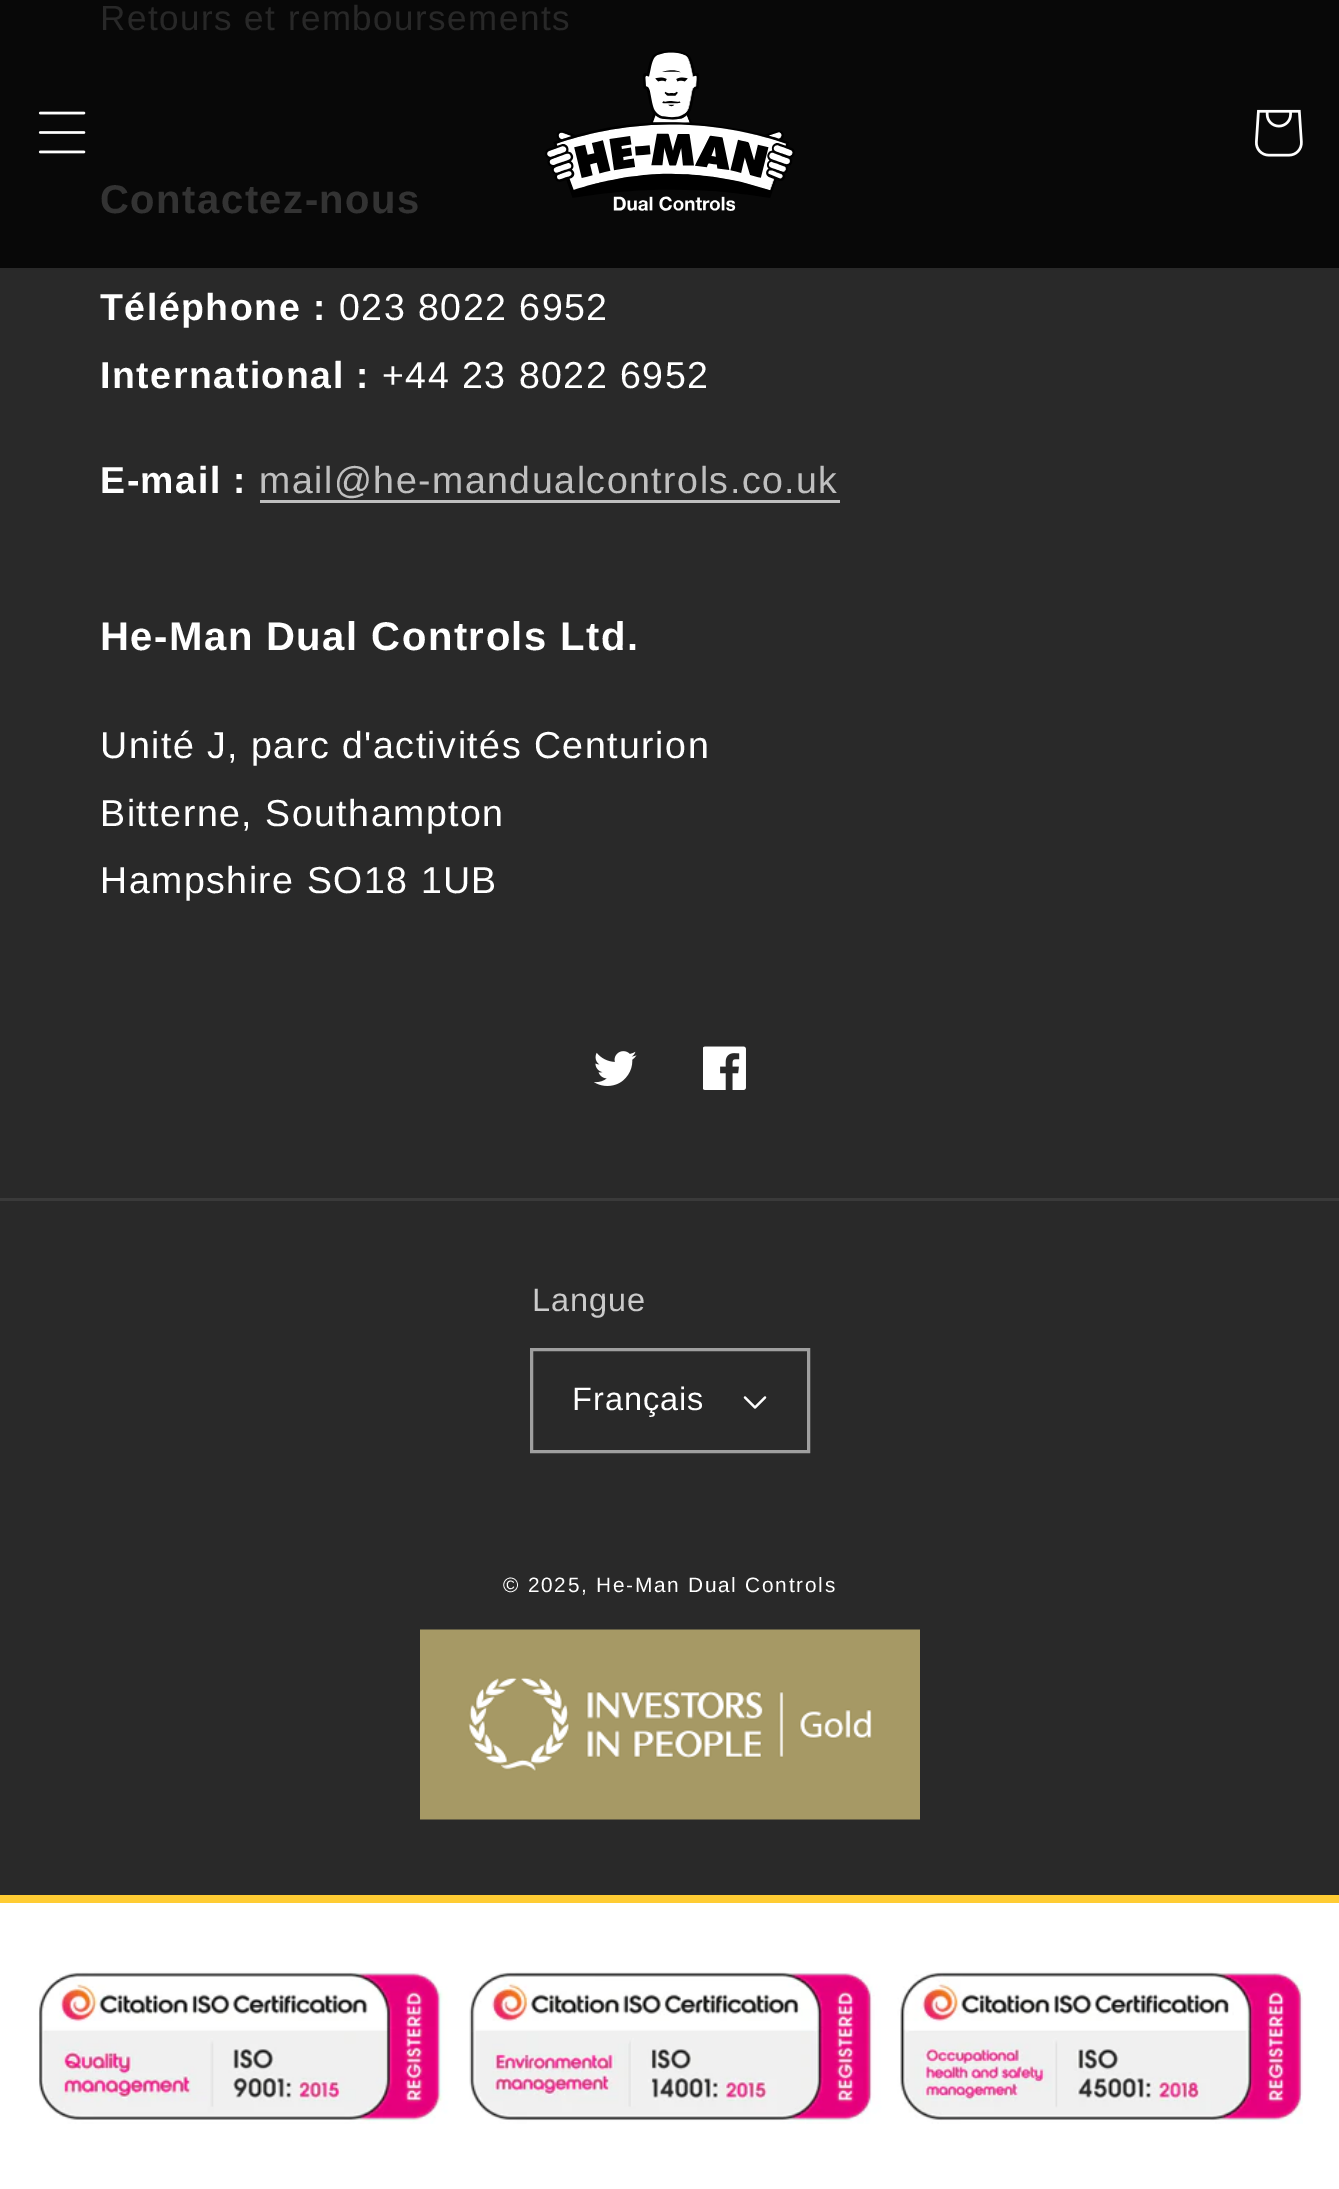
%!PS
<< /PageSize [1339 2189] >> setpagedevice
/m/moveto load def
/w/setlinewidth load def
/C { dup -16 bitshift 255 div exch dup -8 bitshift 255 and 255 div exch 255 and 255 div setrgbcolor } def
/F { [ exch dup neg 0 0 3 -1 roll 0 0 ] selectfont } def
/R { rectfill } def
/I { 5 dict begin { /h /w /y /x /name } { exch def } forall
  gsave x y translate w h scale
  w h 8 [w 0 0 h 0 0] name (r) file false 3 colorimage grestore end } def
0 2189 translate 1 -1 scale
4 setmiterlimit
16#292929 C
0 0 1339 2189 R
16#080808 C
0 0 1339 268 R
/LiberationSans-Regular 35 F
16#282828 C
100 30 m 1.5 0 (Retours et remboursements) ashow
/LiberationSans-Bold 40 F
16#333333 C
100 213 m 1.5 0 (Contactez-nous) ashow
/LiberationSans-Bold 37.5 F
16#FFFFFF C
100 320 m 1.5 0 (Téléphone :) ashow
/LiberationSans-Regular 37.5 F
339 320 m 1.5 0 (023 8022 6952) ashow
/LiberationSans-Bold 37.5 F
100 388 m 1.5 0 (International :) ashow
/LiberationSans-Regular 37.5 F
382 388 m 1.5 0 (+44 23 8022 6952) ashow
/LiberationSans-Bold 37.5 F
100 493 m 1.5 0 (E-mail :) ashow
/LiberationSans-Regular 37.5 F
16#BFBFBF C
259 493 m 1.5 0 (mail@he-mandualcontrols.co.uk) ashow
260 500 580 3 R
/LiberationSans-Bold 40 F
16#FFFFFF C
100 650 m 1.5 0 (He-Man Dual Controls Ltd.) ashow
/LiberationSans-Regular 37.5 F
100 758 m 1.5 0 (Unité J, parc d'activités Centurion) ashow
100 826 m 1.5 0 (Bitterne, Southampton) ashow
100 893 m 1.5 0 (Hampshire SO18 1UB) ashow
(1.rgb) 594 1051 43 35 I
(2.rgb) 703 1046 43 44 I
16#3A3A3A C
0 1198 1339 3 R
/LiberationSans-Regular 32.5 F
16#CACACA C
532 1311 m 1 0 (Langue) ashow
16#9F9F9F C
3 w
531.5 1349.5 277 102 rectstroke
16#FFFFFF C
572 1410 m 1 0 (Français) ashow
(3.rgb) 743 1396 24 13 I
/LiberationSans-Regular 20.8 F
503 1592 m 1.75 0 (© 2025, He-Man Dual Controls) ashow
(4.rgb) 420 1629 500 191 I
0 1903 1339 286 R
16#FFCC33 C
0 1895 1339 8 R
(5.rgb) 38 1971 1265 153 I
(6.rgb) 38 111 48 43 I
(7.rgb) 545 50 250 161 I
(8.rgb) 1255 109 48 48 I
showpage
